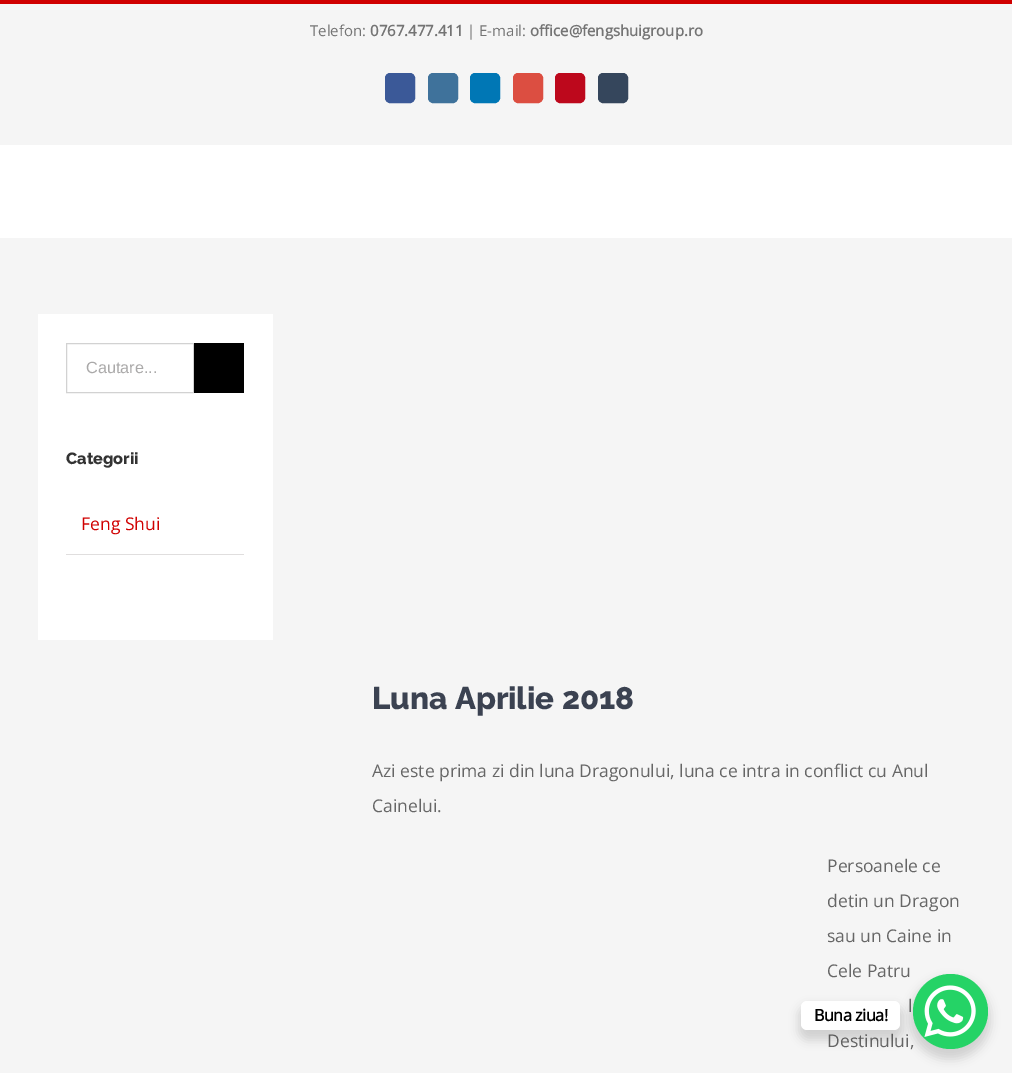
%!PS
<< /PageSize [1012 1073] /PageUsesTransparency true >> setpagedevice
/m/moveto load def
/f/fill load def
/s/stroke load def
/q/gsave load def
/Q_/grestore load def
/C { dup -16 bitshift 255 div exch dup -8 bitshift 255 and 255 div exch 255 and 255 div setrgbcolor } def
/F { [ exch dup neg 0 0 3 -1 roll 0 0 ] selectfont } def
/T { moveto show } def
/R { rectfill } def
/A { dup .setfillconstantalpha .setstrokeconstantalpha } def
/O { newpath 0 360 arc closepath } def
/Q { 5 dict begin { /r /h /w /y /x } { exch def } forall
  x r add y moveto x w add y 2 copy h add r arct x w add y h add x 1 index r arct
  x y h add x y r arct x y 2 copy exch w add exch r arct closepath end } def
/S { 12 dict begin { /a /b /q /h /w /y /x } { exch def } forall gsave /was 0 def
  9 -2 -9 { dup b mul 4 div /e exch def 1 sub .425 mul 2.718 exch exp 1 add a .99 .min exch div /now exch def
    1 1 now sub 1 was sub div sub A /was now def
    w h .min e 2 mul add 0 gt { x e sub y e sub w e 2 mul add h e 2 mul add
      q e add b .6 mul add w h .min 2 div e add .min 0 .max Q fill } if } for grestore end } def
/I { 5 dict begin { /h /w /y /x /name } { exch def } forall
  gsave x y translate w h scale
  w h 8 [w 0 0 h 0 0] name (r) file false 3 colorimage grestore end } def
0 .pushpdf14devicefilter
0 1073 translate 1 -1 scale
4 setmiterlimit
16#F5F5F5 C
0 0 1012 1073 R
16#D00000 C
0 0 1012 4 R
/OpenSans-Regular 15 F
16#747474 C
(Telefon:) 310 36 T
/OpenSans-Bold 15 F
(0767.477.411) 370 36 T
/OpenSans-Regular 15 F
(| E-mail:) 467 36 T
/OpenSans-Bold 15 F
(office@fengshuigroup.ro) 530 36 T
16#3B5998 C
385.5 73.5 29 29 4.5 Q q f Q_
s
16#3F729B C
428.5 73.5 29 29 4.5 Q q f Q_
s
16#0077B5 C
470.5 73.5 29 29 4.5 Q q f Q_
s
16#DC4E41 C
513.5 73.5 29 29 4.5 Q q f Q_
s
16#BD081C C
555.5 73.5 29 29 4.5 Q q f Q_
s
16#35465C C
598.5 73.5 29 29 4.5 Q q f Q_
s
16#FFFFFF C
0 145 1012 93 R
38 314 235 326 R
16#D2D2D2 C
66.5 343.5 127 49 rectstroke
/LiberationSans-Regular 16.25 F
16#AAA9A9 C
(Cautare...) 86 373 T
16#000000 C
194 343 50 50 R
/Raleway-Thin 16.25 F
16#333333 C
(Categorii) 66 464 T
16#E0DEDE C
66 554 178 1 R
/OpenSans-Regular 17.5 F
16#D00000 C
(Feng Shui) 81 530 T
/Raleway-Thin 31.25 F
16#3B4251 C
(Luna Aprilie 2018) 372 709 T
/OpenSans-Regular 17.5 F
16#666666 C
(Azi este prima zi din luna Dragonului, luna ce intra in conflict cu Anul) 372 777 T
(Cainelui.) 372 812 T
(Persoanele ce) 827 872 T
(detin un Dragon) 827 907 T
(sau un Caine in) 827 942 T
(Cele Patru) 827 977 T
(l) 908 1012 T
(Destinului,) 827 1047 T
16#000000 C
910 979 80 80 40 5 .15 S
16#25D366 C
950.5 1011.5 37.5 O f
16#000000 C
799 1006 104 34 9 5 .15 S
16#FFFFFF C
801 1001 99 29 6 Q f
/OpenSans-Bold 16.25 F
16#000000 C
814 1021 m -.5 0 (Buna ziua!) ashow
(1.rgb) 924 985 52 52 I
.poppdf14devicefilter showpage
